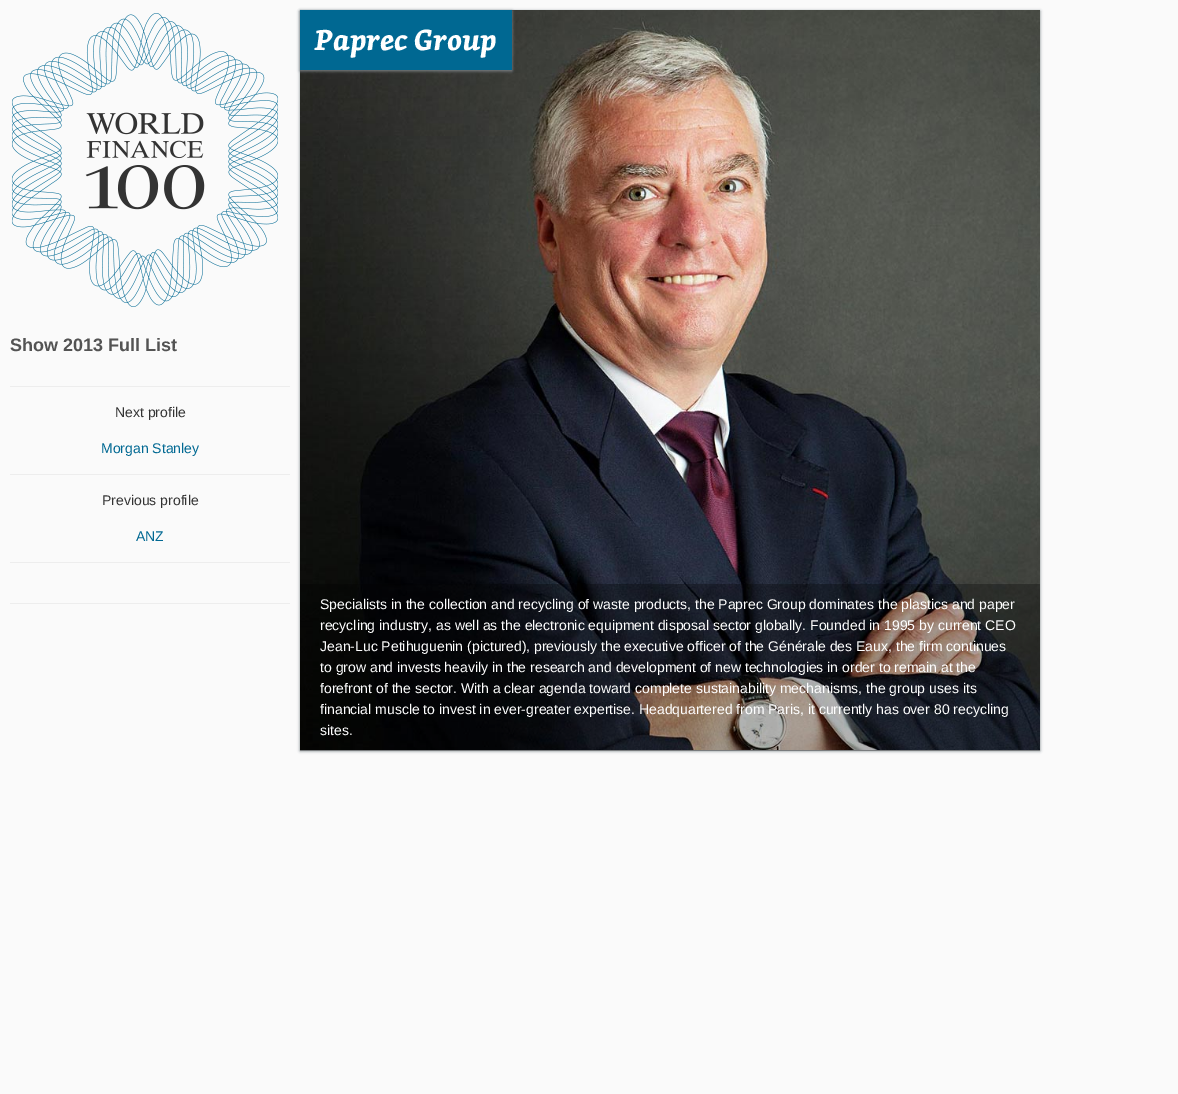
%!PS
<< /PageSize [1178 1094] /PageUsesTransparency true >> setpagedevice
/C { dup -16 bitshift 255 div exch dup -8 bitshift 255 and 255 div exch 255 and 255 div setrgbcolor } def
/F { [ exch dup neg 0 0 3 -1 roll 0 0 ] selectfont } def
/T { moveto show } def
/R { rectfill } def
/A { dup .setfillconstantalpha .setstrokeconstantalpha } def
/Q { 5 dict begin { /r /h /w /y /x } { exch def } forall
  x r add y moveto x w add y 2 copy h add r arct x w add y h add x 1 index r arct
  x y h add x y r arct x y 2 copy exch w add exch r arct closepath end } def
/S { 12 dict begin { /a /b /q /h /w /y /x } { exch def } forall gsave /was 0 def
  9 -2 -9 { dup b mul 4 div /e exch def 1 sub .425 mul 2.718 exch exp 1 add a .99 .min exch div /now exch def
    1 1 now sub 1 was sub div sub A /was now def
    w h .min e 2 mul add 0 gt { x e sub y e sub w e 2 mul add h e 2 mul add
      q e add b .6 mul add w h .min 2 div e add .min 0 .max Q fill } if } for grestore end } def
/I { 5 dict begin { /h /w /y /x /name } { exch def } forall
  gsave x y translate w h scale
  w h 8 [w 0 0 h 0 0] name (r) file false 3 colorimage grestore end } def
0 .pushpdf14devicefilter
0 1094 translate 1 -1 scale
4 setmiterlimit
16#FAFAFA C
0 0 1178 1094 R
16#EDEDED C
10 603 280 1 R
(1.rgb) 11 13 268 294 I
/LiberationSans-Bold 18 F
16#535353 C
(Show 2013 Full List) 10 351 T
16#EDEDED C
10 386 280 1 R
10 474 280 1 R
/LiberationSans-Regular 14 F
16#333333 C
(Next profile) 115 417 T
16#006892 C
(Morgan Stanley) 101 453 T
16#EDEDED C
10 562 280 1 R
16#333333 C
(Previous profile) 102 505 T
16#006892 C
(ANZ) 136 541 T
16#82888B C
300 11 740 740 0 1.5 1 S
(2.rgb) 300 10 740 740 I
300 11 212 60 0 1.5 1 S
16#006892 C
300 10 212 60 R
/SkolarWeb-BoldItalic 30 F
16#FFFFFF C
(Paprec Group) 315 50 T
0.3 A
16#000000 C
300 584 740 167 R
/LiberationSans-Regular 14 F
1 A
16#FFFFFF C
(Specialists in the collection and recycling of waste products, the Paprec Group dominates the plastics and paper) 320 609 T
(recycling industry, as well as the electronic equipment disposal sector globally. Founded in 1995 by current CEO) 320 630 T
(Jean-Luc Petihuguenin \(pictured\), previously the executive officer of the Générale des Eaux, the firm continues) 320 651 T
(to grow and invests heavily in the research and development of new technologies in order to remain at the) 320 672 T
(forefront of the sector. With a clear agenda toward complete sustainability mechanisms, the group uses its) 320 693 T
(financial muscle to invest in ever-greater expertise. Headquartered from Paris, it currently has over 80 recycling) 320 714 T
(sites.) 320 735 T
.poppdf14devicefilter showpage
